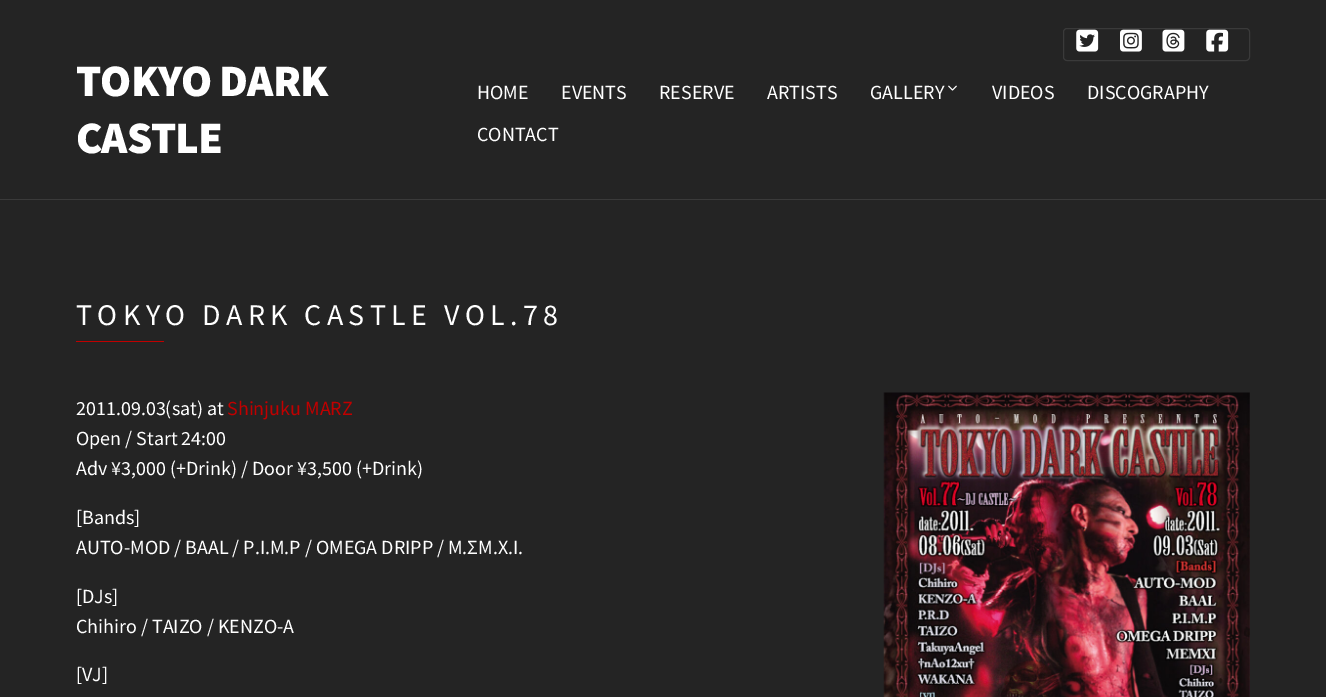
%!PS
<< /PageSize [1326 697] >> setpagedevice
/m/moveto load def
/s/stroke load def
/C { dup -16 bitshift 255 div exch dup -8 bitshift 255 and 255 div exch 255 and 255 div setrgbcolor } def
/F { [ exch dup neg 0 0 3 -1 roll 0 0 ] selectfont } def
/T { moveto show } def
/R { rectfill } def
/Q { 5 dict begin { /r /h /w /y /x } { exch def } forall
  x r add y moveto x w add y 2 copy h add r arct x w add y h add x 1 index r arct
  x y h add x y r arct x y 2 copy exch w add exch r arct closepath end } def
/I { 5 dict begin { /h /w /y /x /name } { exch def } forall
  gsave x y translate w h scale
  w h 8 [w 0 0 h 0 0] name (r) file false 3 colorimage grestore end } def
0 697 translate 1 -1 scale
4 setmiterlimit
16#242424 C
0 0 1326 697 R
16#3A3A3A C
0 199 1326 1 R
/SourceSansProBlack-Black 45 F
16#FFFFFF C
76 96 m -1 0 (TOKYO DARK) ashow
76 153 m -1 0 (CASTLE) ashow
16#3A3A3A C
1063.5 28.5 186 32 3.5 Q s
(1.rgb) 1076 29 23 23 I
(2.rgb) 1120 29 22 23 I
(3.rgb) 1162 29 23 23 I
(4.rgb) 1206 29 23 23 I
/SourceSansPro-Regular 20 F
16#FFFFFF C
(HOME) 477 99 T
(EVENTS) 561 99 T
(RESERVE) 659 99 T
(ARTISTS) 767 99 T
(GALLERY) 870 99 T
(5.rgb) 948 85 9 6 I
(VIDEOS) 992 99 T
(DISCOGRAPHY) 1087 99 T
(CONTACT) 477 141 T
/SourceSansPro-Regular 30 F
76 325 m 5.4 0 (TOKYO DARK CASTLE VOL.78) ashow
16#C00000 C
76 341 88 1 R
/SourceSansPro-Regular 20 F
16#FFFFFF C
(2011.09.03\(sat\) at) 76 415 T
16#C00000 C
(Shinjuku MARZ) 227 415 T
16#FFFFFF C
(Open / Start 24:00) 76 445 T
(Adv ¥3,000 \(+Drink\) / Door ¥3,500 \(+Drink\)) 76 475 T
([Bands]) 76 524 T
(AUTO-MOD / BAAL / P.I.M.P / OMEGA DRIPP / M.ΣM.X.I.) 76 554 T
([DJs]) 76 603 T
(Chihiro / TAIZO / KENZO-A) 76 633 T
([VJ]) 76 681 T
(6.rgb) 883 392 367 305 I
showpage
